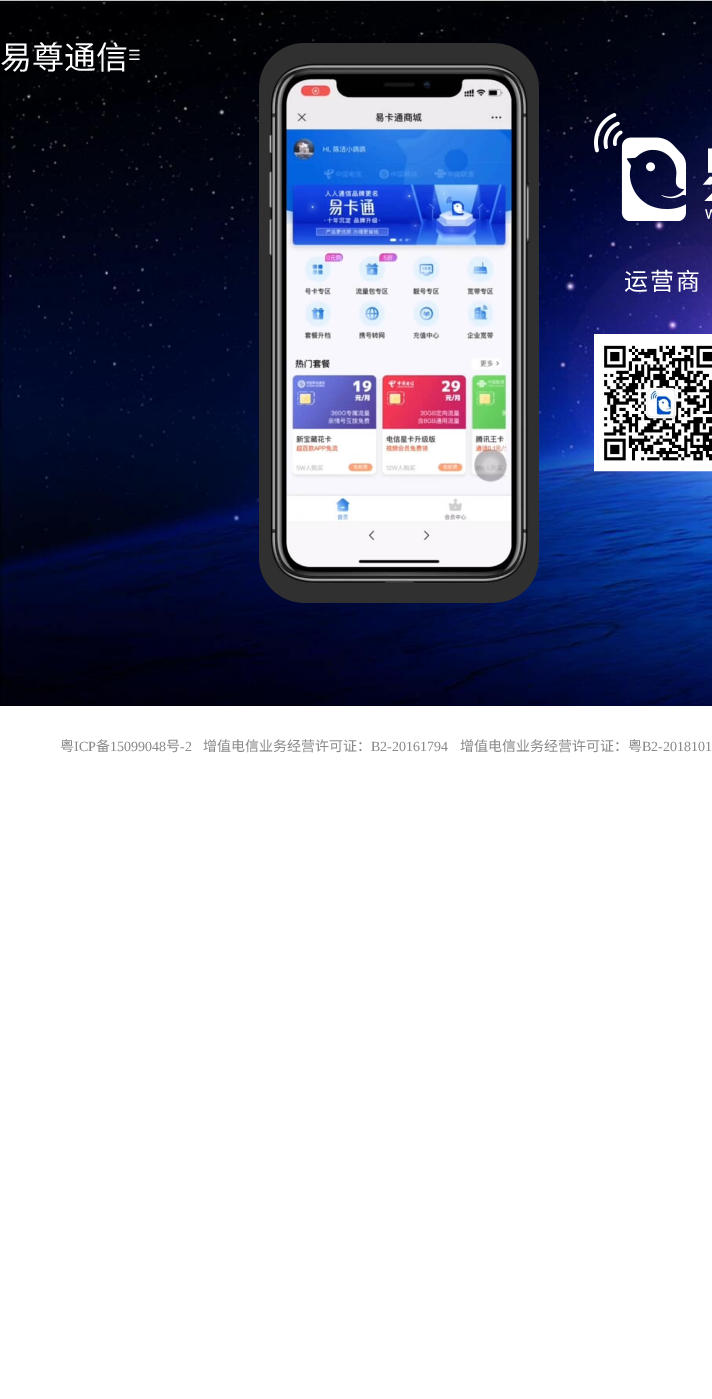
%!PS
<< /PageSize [712 1399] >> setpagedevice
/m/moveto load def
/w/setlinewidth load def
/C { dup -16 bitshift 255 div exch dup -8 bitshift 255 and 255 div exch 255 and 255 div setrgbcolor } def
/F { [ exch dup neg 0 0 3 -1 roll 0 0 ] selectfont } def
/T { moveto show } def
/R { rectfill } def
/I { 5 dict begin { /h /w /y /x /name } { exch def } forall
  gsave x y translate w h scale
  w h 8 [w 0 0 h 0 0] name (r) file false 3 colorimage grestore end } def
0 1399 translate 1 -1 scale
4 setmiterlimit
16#FFFFFF C
0 0 712 1399 R
(1.rgb) 0 0 712 706 I
/NotoSansCJKSC-Regular 32 F
(易尊通信) 0 69 T
/DejaVuSans-Regular 14 F
(☰) 128 60 T
(2.rgb) 259 43 280 560 I
(3.rgb) 594 113 118 108 I
/NotoSansCJKSC-Regular 24 F
624 290 m 2 0 (运营商) ashow
2 w
595 335 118 135 rectstroke
(4.rgb) 596 336 116 133 I
/NotoSansCJKSC-Regular 14 F
16#898989 C
(粤) 60 751 T
/LiberationSerif-Regular 14 F
(ICP) 74 751 T
/NotoSansCJKSC-Regular 14 F
(备) 96 751 T
/LiberationSerif-Regular 14 F
(15099048) 110 751 T
/NotoSansCJKSC-Regular 14 F
(号) 166 751 T
/LiberationSerif-Regular 14 F
(-2) 180 751 T
/NotoSansCJKSC-Regular 14 F
(增值电信业务经营许可证：) 203 751 T
/LiberationSerif-Regular 14 F
(B2-20161794) 371 751 T
/NotoSansCJKSC-Regular 14 F
(增值电信业务经营许可证：粤) 460 751 T
/LiberationSerif-Regular 14 F
(B2-2018101) 642 751 T
showpage
